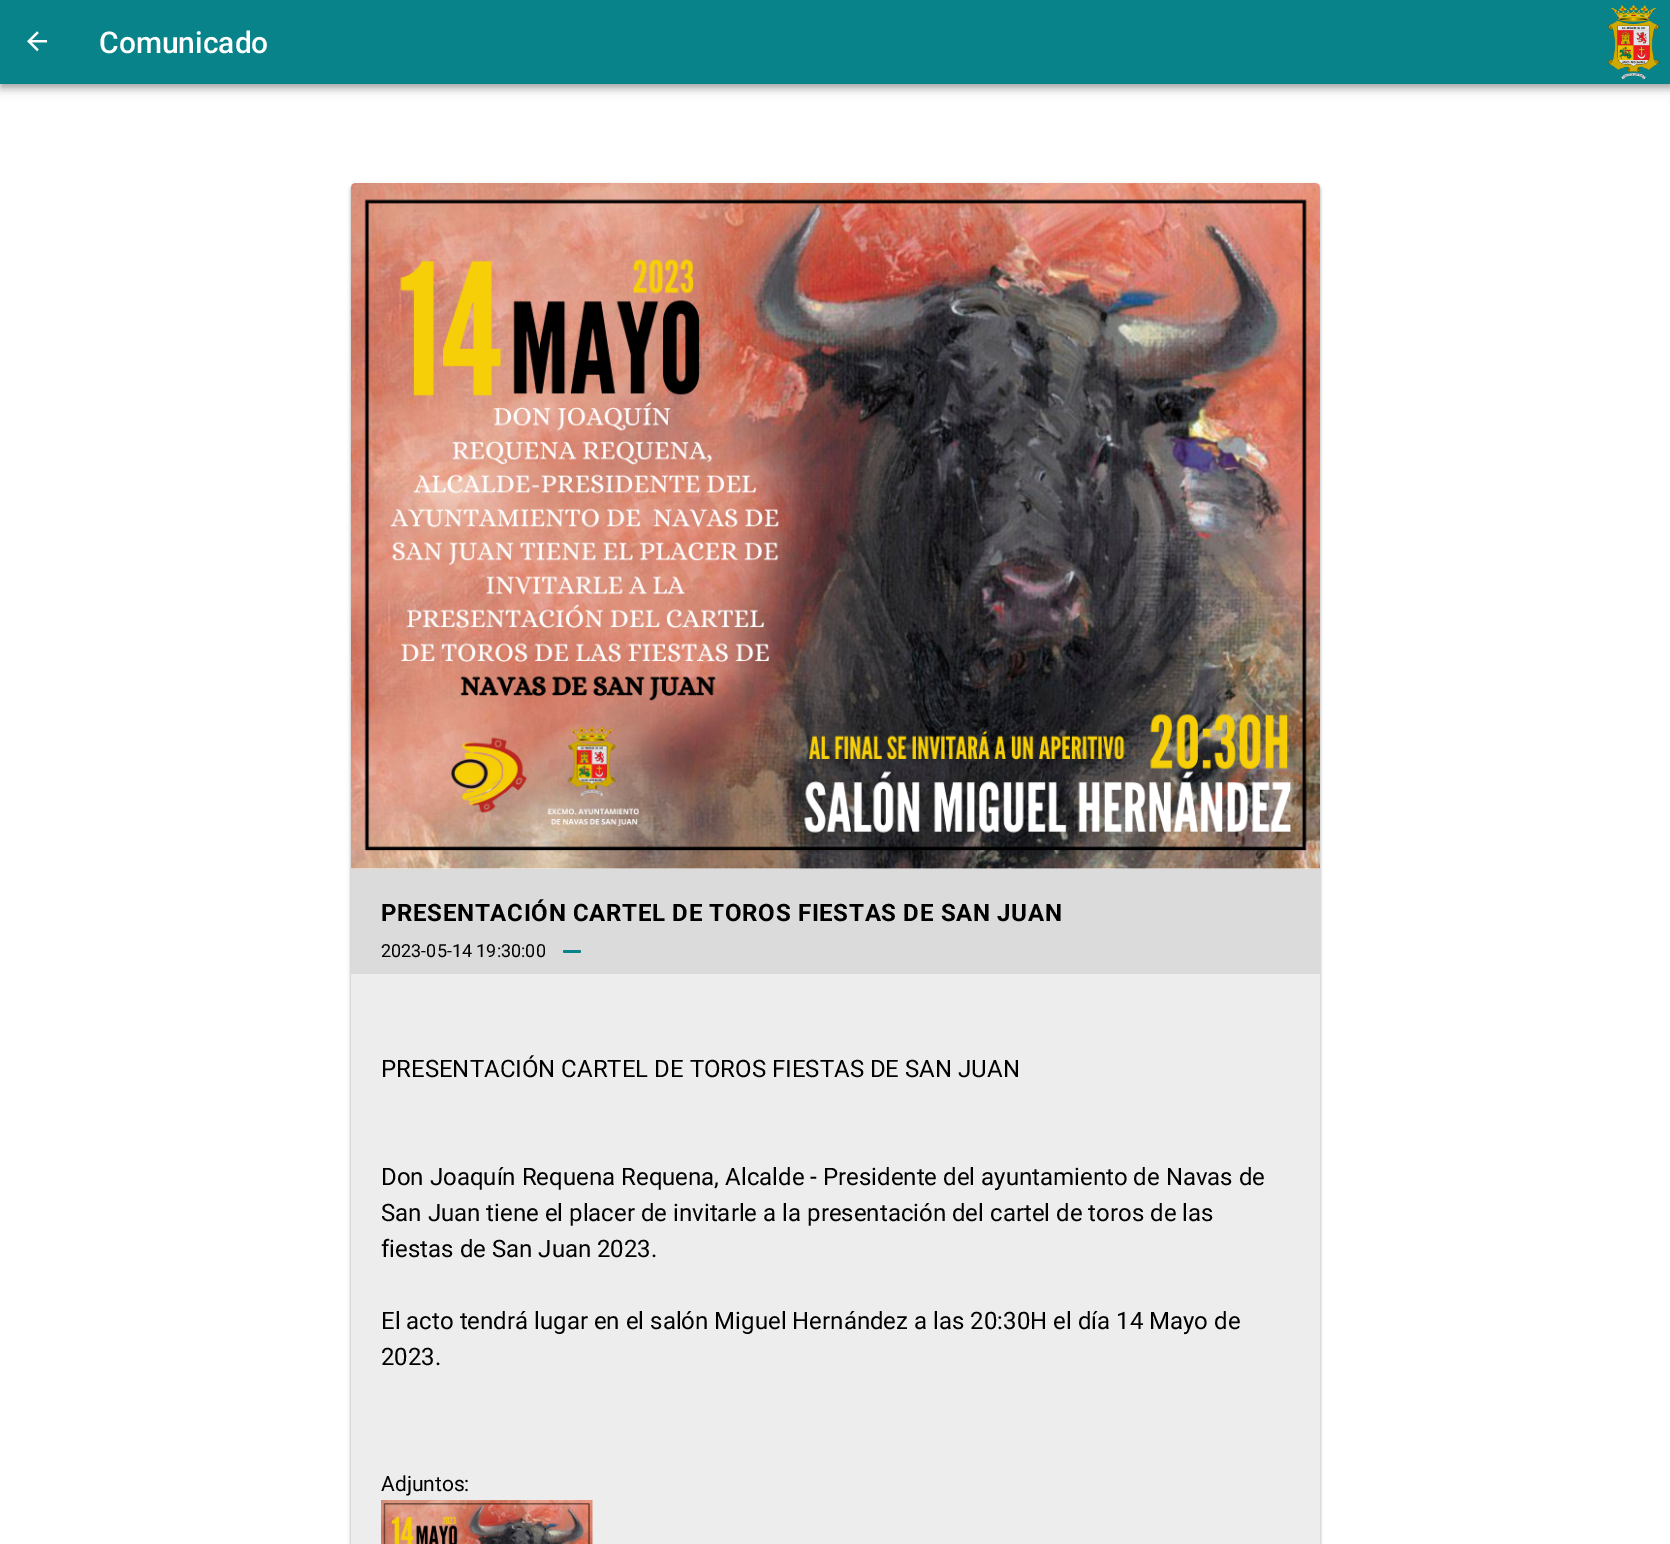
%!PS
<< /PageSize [1670 1544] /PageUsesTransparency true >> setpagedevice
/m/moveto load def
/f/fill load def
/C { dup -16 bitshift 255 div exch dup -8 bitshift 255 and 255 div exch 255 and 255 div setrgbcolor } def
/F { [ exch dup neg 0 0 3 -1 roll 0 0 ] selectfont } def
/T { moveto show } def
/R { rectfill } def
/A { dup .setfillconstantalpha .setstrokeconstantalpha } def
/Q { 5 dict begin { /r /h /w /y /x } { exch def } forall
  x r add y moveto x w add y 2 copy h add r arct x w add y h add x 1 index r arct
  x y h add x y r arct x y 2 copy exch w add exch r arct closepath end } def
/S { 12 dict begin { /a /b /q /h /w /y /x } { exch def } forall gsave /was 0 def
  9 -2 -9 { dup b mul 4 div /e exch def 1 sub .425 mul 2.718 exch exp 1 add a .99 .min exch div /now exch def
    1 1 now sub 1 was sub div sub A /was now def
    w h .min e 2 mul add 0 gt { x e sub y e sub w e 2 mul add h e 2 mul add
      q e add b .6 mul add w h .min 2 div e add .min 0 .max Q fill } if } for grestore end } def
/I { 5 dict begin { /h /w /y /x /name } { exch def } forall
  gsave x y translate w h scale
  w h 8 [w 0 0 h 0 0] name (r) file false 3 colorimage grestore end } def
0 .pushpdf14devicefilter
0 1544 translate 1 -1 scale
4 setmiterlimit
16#FFFFFF C
0 0 1670 1544 R
16#000000 C
0 2 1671 84 0 7.5 .12 S
0 6 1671 84 0 4 .14 S
2 5 1668 81 0 3 .2 S
16#088389 C
0 0 1670 84 R
(1.rgb) 27 31 21 21 I
/Roboto-Medium 30 F
16#FFFFFF C
(Comunicado) 99 53 T
(2.rgb) 1608 4 52 76 I
16#000000 C
351 185 969 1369 5 1.5 .24 S
351 185 969 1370 5 2 .12 S
(3.rgb) 351 183 969 686 I
16#EDEDED C
351 974 969 570 R
16#DBDBDB C
351 869 969 105 R
/Roboto-Bold 24 F
16#000000 C
381 921 m .7 0 (PRESENTACIÓN CARTEL DE TOROS FIESTAS DE SAN JUAN) ashow
/Roboto-Regular 18 F
(2023-05-14 19:30:00) 381 957 T
16#088389 C
563 950 18 3 1.5 Q f
/Roboto-Regular 24 F
16#000000 C
(PRESENTACIÓN CARTEL DE TOROS FIESTAS DE SAN JUAN) 381 1077 T
(Don Joaquín Requena Requena, Alcalde - Presidente del ayuntamiento de Navas de) 381 1185 T
(San Juan tiene el placer de invitarle a la presentación del cartel de toros de las) 381 1221 T
(fiestas de San Juan 2023.) 381 1257 T
(El acto tendrá lugar en el salón Miguel Hernández a las 20:30H el día 14 Mayo de) 381 1329 T
(2023.) 381 1365 T
/Roboto-Regular 21 F
(Adjuntos:) 381 1491 T
(4.rgb) 381 1500 212 44 I
.poppdf14devicefilter showpage
